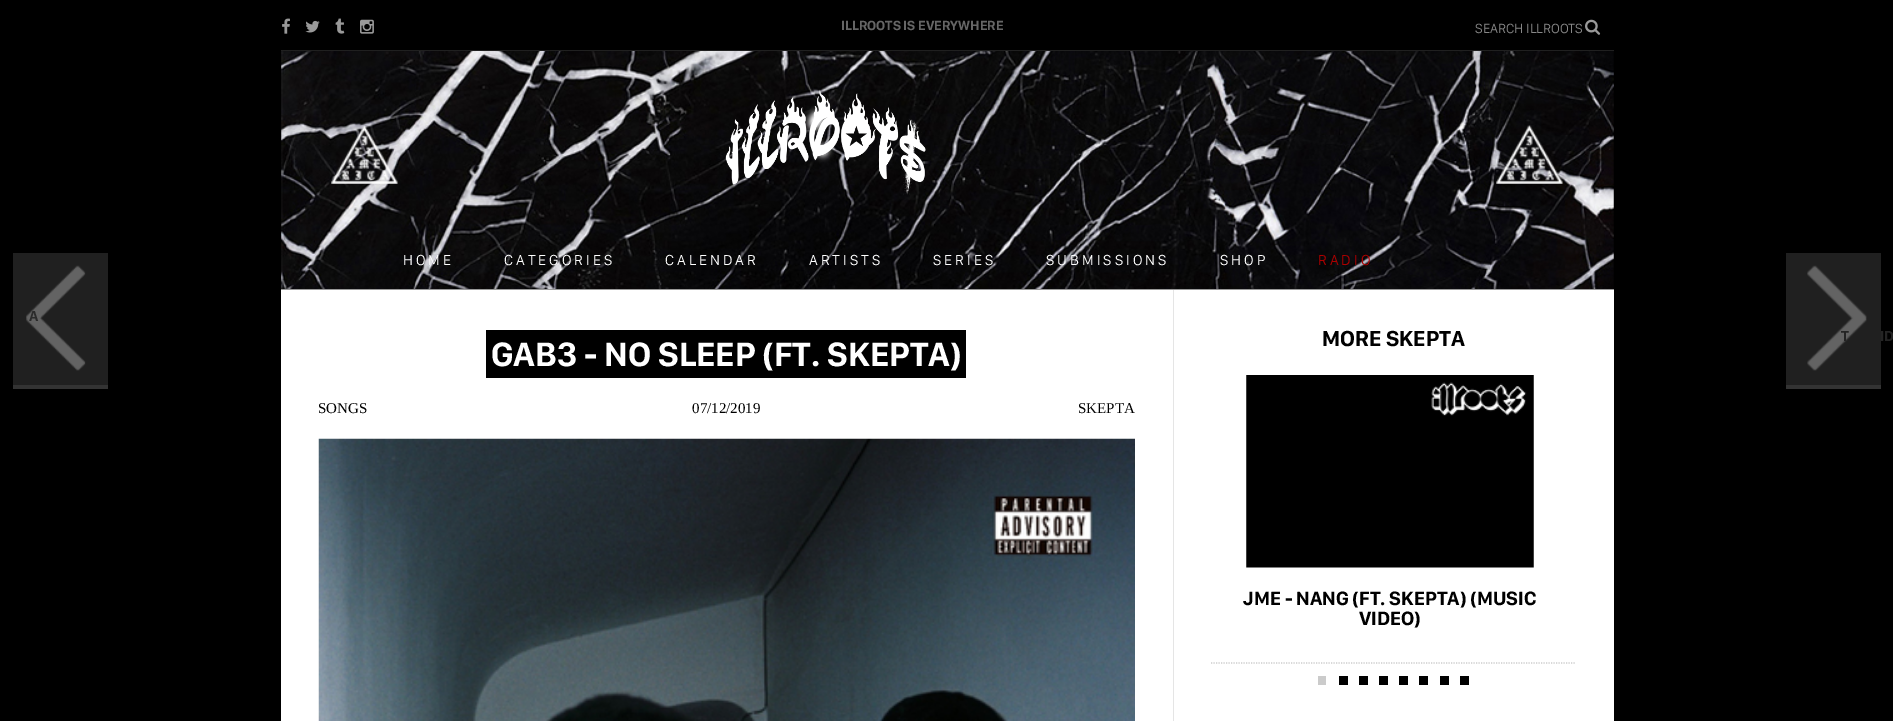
%!PS
<< /PageSize [1893 721] >> setpagedevice
/m/moveto load def
/l/rlineto load def
/s/stroke load def
/w/setlinewidth load def
/C { dup -16 bitshift 255 div exch dup -8 bitshift 255 and 255 div exch 255 and 255 div setrgbcolor } def
/F { [ exch dup neg 0 0 3 -1 roll 0 0 ] selectfont } def
/T { moveto show } def
/R { rectfill } def
/I { 5 dict begin { /h /w /y /x /name } { exch def } forall
  gsave x y translate w h scale
  w h 8 [w 0 0 h 0 0] name (r) file false 3 colorimage grestore end } def
0 721 translate 1 -1 scale
4 setmiterlimit
16#000000 C
0 0 1893 721 R
(1.rgb) 281 51 1333 238 I
16#202020 C
281 50 1333 1 R
(2.rgb) 282 18 8 16 I
(3.rgb) 305 20 15 13 I
(4.rgb) 335 18 10 16 I
(5.rgb) 360 19 14 15 I
/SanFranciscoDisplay-Bold 13.75 F
16#666666 C
(ILLROOTS IS EVERYWHERE) 841 30 T
/SanFranciscoDisplay-Regular 13.75 F
16#878787 C
(SEARCH ILLROOTS) 1475 33 T
(6.rgb) 1585 19 16 16 I
(7.rgb) 331 125 67 59 I
(8.rgb) 725 89 201 106 I
(9.rgb) 1496 125 67 59 I
/SanFranciscoDisplay-Regular 15 F
16#FFFFFF C
403 265 m 3 0 (HOME) ashow
504 265 m 3 0 (CATEGORIES) ashow
665 265 m 3 0 (CALENDAR) ashow
809 265 m 3 0 (ARTISTS) ashow
933 265 m 3 0 (SERIES) ashow
1046 265 m 3 0 (SUBMISSIONS) ashow
1220 265 m 3 0 (SHOP) ashow
16#AC0000 C
1318 265 m 3 0 (RADIO) ashow
16#999999 C
281 289 1333 1 R
16#FFFFFF C
281 290 1333 431 R
16#E5E5E5 C
1173 290 1 431 R
16#202020 C
13 253 95 132 R
16#333333 C
13 385 95 4 R
(10.rgb) 26 265 60 106 I
/SanFranciscoDisplay-Bold 15 F
16#2B2B2B C
(A) 29 321 T
16#202020 C
1786 253 95 132 R
16#333333 C
1786 385 95 4 R
(11.rgb) 1807 265 60 106 I
16#242424 C
(T) 1841 341 T
(ID) 1880 341 T
16#000000 C
486 330 480 48 R
/SanFranciscoDisplay-Bold 35 F
16#FFFFFF C
(GAB3 - NO SLEEP \(FT. SKEPTA\)) 491 366 T
/LiberationSerif-Regular 15 F
16#000000 C
(SONGS) 318 413 T
(07/12/2019) 692 413 T
(SKEPTA) 1078 413 T
(12.rgb) 318 438 817 283 I
/SanFranciscoDisplay-Bold 22.5 F
(MORE SKEPTA) 1322 346 T
(13.rgb) 1246 375 288 193 I
/SanFranciscoDisplay-Bold 20 F
(JME - NANG \(FT. SKEPTA\) \(MUSIC) 1243 605 T
(VIDEO\)) 1359 625 T
16#CCCCCC C
1.2 w
[1.25 1.25] 0 setdash
1211 663 m 365 0 l s
16#CBCBCB C
1318 676 8 9 R
16#000000 C
1339 676 9 9 R
1359 676 9 9 R
1379 676 9 9 R
1399 676 9 9 R
1419 676 9 9 R
1440 676 9 9 R
1460 676 9 9 R
showpage
